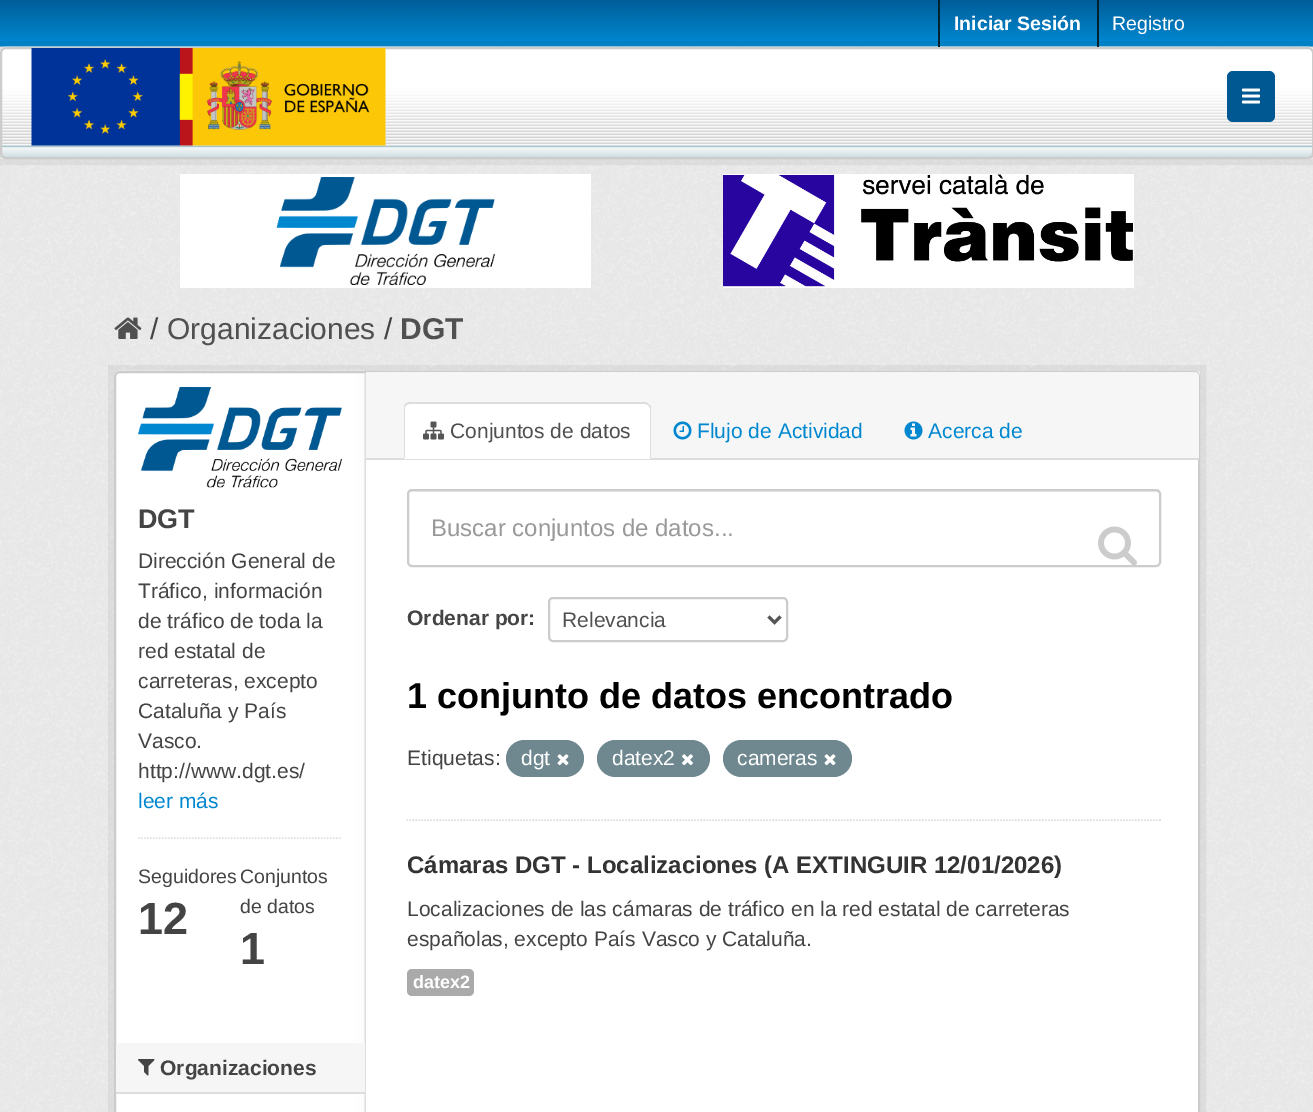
%!PS
<< /PageSize [1313 1112] /PageUsesTransparency true >> setpagedevice
/m/moveto load def
/l/rlineto load def
/c/rcurveto load def
/z/closepath load def
/f/fill load def
/s/stroke load def
/w/setlinewidth load def
/C { dup -16 bitshift 255 div exch dup -8 bitshift 255 and 255 div exch 255 and 255 div setrgbcolor } def
/F { [ exch dup neg 0 0 3 -1 roll 0 0 ] selectfont } def
/T { moveto show } def
/R { rectfill } def
/A { dup .setfillconstantalpha .setstrokeconstantalpha } def
/Q { 5 dict begin { /r /h /w /y /x } { exch def } forall
  x r add y moveto x w add y 2 copy h add r arct x w add y h add x 1 index r arct
  x y h add x y r arct x y 2 copy exch w add exch r arct closepath end } def
/I { 5 dict begin { /h /w /y /x /name } { exch def } forall
  gsave x y translate w h scale
  w h 8 [w 0 0 h 0 0] name (r) file false 3 colorimage grestore end } def
0 .pushpdf14devicefilter
0 1112 translate 1 -1 scale
4 setmiterlimit
16#EEEEEE C
0 0 1313 1112 R
(1.rgb) 0 46 1313 256 I
(2.rgb) 0 0 1313 47 I
0.05 A
16#000000 C
6 w
-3 44 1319 118 rectstroke
1 A
(3.rgb) 0 46 1313 112 I
16#00232E C
938 0 2 47 R
/LiberationSans-Bold 19.5 F
16#FFFFFF C
(Iniciar Sesión) 954 30 T
16#00232E C
1097 0 2 47 R
/LiberationSans-Regular 19.5 F
16#FFFFFF C
(Registro) 1112 30 T
16#CCCCCC C
2 w
1 48 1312 110 5 Q s
(4.rgb) 31 48 355 98 I
16#005892 C
1227 71 48 51 6 Q f
(5.rgb) 1242 88 18 16 I
(6.rgb) 180 174 411 114 I
(7.rgb) 723 174 411 114 I
(8.rgb) 0 302 1313 810 I
(9.rgb) 114 317 28 22 I
/LiberationSans-Regular 30 F
16#444444 C
(/) 150 339 T
16#505050 C
(Organizaciones) 167 339 T
16#444444 C
(/) 384 339 T
/LiberationSans-Bold 30 F
16#505050 C
(DGT) 400 339 T
0.05 A
16#000000 C
6 w
111 368 1092 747 rectstroke
1 A
16#FFFFFF C
114 371 1086 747 6 Q f
(10.rgb) 114 370 252 742 I
16#CCCCCC C
2 w
115 372 1084 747 5 Q s
(11.rgb) 138 387 204 101 I
/LiberationSans-Bold 27 F
16#444444 C
(DGT) 138 528 T
/LiberationSans-Regular 21 F
(Dirección General de) 138 568 T
(Tráfico, información) 138 598 T
(de tráfico de toda la) 138 628 T
(red estatal de) 138 658 T
(carreteras, excepto) 138 688 T
(Cataluña y País) 138 718 T
(Vasco.) 138 748 T
(http://www.dgt.es/) 138 778 T
16#0087D0 C
(leer más) 138 808 T
16#DDDDDD C
1.5 w
[1.5 1.5] 0 setdash
138 838 m 204 0 l s
/LiberationSans-Regular 19.5 F
16#444444 C
(Seguidores) 138 883 T
/LiberationSans-Bold 45 F
(12) 138 934 T
/LiberationSans-Regular 19.5 F
(Conjuntos) 240 883 T
(de datos) 240 913 T
/LiberationSans-Bold 45 F
(1) 240 964 T
16#F6F6F6 C
121 1043 m 244 0 l 0 51 l -249 0 l 0 -46 l 0 -3 2 -5 5 -5 c z f
16#DDDDDD C
116 1092 249 2 R
(12.rgb) 138 1059 17 17 I
/LiberationSans-Bold 21 F
16#444444 C
(Organizaciones) 160 1075 T
16#F6F6F6 C
366 372 m 828 0 l 3 0 5 2 5 5 c 0 82 l -833 0 l z f
16#DDDDDD C
366 458 833 2 R
16#FFFFFF C
410 402 m 235 0 l 3.5 0 6 2.5 6 6 c 0 51 l -247 0 l 0 -51 l 0 -3.5 2.5 -6 6 -6 c z f
16#DDDDDD C
410 402 m -2 0 -4 1 -5 2 c 2 1 l 0 -1 2 -1 3 -1 c 235 0 l 3 1 l 1 -1 l -1 -1 -3 -2 -4 -2 c z f
651 459 m 0 -51 l 0 -2 -1 -3 -2 -4 c -1 1 l 2 3 l 0 50 l z f
405 404 m -1 1 -1 3 -1 4 c 0 50 l 1 0 l 0 -51 l 2 -2 l z f
(13.rgb) 423 421 21 19 I
/LiberationSans-Regular 21 F
16#505050 C
(Conjuntos de datos) 450 438 T
(14.rgb) 673 421 19 19 I
16#0087D0 C
(Flujo de Actividad) 697 438 T
(15.rgb) 904 421 19 19 I
(Acerca de) 928 438 T
16#DDDDDD C
406.5 820 m 754.5 0 l s
16#ECECEC C
411 492 m 745 0 l 2 0 4 1 4 3 c 0 -2 -1 -4 -3 -4 c -746 0 l -2 0 -3 2 -3 4 c 0 -2 1 -3 3 -3 c z f
16#CCCCCC C
2 w
[] 0 setdash
408 490 752 76 4 Q s
/LiberationSans-Regular 24 F
16#999999 C
(Buscar conjuntos de datos...) 431 536 T
(16.rgb) 1098 526 39 39 I
/LiberationSans-Bold 21 F
16#444444 C
(Ordenar por:) 407 625 T
16#CCCCCC C
549 598 238 43 4 Q s
16#555555 C
3 w
768.5 616.5 m 6 6 l 6 -6 l s
/LiberationSans-Regular 21 F
16#505050 C
(Relevancia) 562 627 T
/LiberationSans-Bold 36 F
16#000000 C
(1 conjunto de datos encontrado) 407 708 T
/LiberationSans-Regular 21 F
16#444444 C
(Etiquetas:) 407 765 T
16#6F8890 C
506 740 78 37 18.5 Q f
16#FFFFFF C
(dgt) 521 765 T
(17.rgb) 557 754 12 12 I
16#6F8890 C
597 740 113 37 18.5 Q f
16#FFFFFF C
(datex2) 612 765 T
(18.rgb) 682 754 11 12 I
16#6F8890 C
723 740 129 37 18.5 Q f
16#FFFFFF C
(cameras) 737 765 T
(17.rgb) 824 754 12 12 I
/LiberationSans-Bold 24 F
16#333333 C
(Cámaras DGT - Localizaciones \(A EXTINGUIR 12/01/2026\)) 407 873 T
/LiberationSans-Regular 21 F
16#444444 C
(Localizaciones de las cámaras de tráfico en la red estatal de carreteras) 407 916 T
(españolas, excepto País Vasco y Cataluña.) 407 946 T
16#AAAAAA C
407 969 67 27 5 Q f
/LiberationSans-Bold 18 F
16#FFFFFF C
(datex2) 413 988 T
.poppdf14devicefilter showpage
